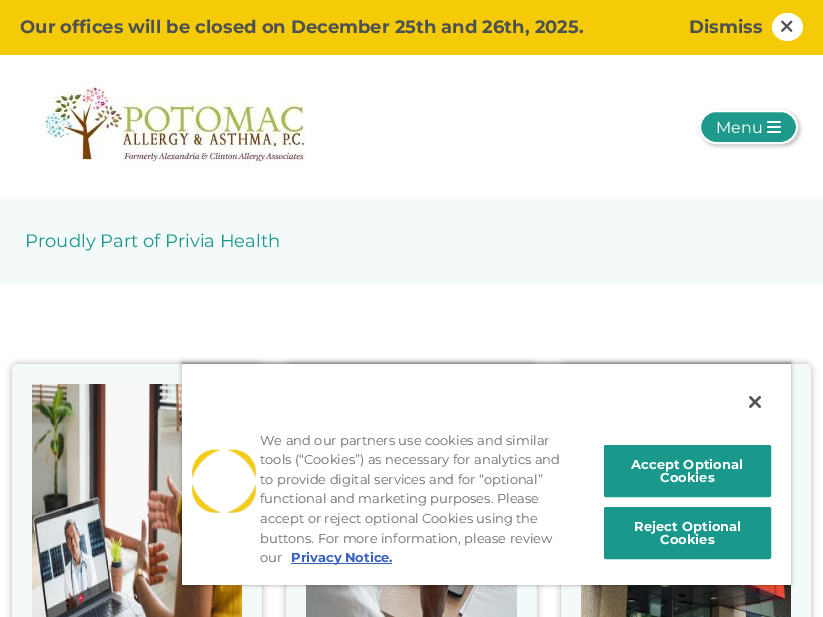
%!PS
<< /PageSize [823 617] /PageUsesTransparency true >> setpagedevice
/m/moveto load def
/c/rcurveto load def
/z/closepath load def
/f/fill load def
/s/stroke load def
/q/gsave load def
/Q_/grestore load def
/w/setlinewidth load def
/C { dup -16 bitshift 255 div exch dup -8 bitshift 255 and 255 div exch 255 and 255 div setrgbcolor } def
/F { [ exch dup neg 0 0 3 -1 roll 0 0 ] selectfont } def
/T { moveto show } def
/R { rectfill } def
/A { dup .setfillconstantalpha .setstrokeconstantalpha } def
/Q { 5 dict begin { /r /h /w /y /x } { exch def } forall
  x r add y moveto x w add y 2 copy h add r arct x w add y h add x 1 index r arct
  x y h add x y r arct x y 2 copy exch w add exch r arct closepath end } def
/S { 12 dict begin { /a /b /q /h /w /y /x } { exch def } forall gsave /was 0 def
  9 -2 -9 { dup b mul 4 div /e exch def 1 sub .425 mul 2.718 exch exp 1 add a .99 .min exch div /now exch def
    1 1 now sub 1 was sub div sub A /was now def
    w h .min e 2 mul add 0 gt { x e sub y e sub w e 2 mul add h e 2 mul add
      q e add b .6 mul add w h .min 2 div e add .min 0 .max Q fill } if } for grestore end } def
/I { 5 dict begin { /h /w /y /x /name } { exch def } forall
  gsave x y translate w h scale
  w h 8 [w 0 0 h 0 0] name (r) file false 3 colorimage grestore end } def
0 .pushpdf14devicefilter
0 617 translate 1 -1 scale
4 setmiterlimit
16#FFFFFF C
0 0 823 617 R
16#F5CB08 C
0 0 823 55 R
/Montserrat-Bold 18 F
16#4D5151 C
(Our offices will be closed on December 25th and 26th, 2025.) 20 33 T
(Dismiss) 689 33 T
16#FFFFFF C
787.5 13 m 8.5 0 15.5 6.5 15.5 14 c 0 7.5 -7 14 -15.5 14 c -8.5 0 -15.5 -6.5 -15.5 -14 c 0 -7.5 7 -14 15.5 -14 c z f
(1.rgb) 781 20 12 12 I
(2.rgb) 41 80 266 88 I
16#000000 C
701 112 99 34 17 2 .25 S
16#1E9A8D C
700 111 97 32 16 Q q f Q_
16#FFFFFF C
2 w
s
/Montserrat-Regular 16 F
(Menu) 716 133 T
(3.rgb) 767 121 14 12 I
16#F4FAFA C
0 199 823 85 R
/Montserrat-Regular 18 F
16#19988B C
(Proudly Part of Privia Health) 25 247 T
16#000000 C
12 364 250 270 6 3.5 .3 S
16#F4FAFA C
12 364 250 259 6 Q f
(4.rgb) 32 384 210 233 I
16#000000 C
286 364 251 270 6 3.5 .3 S
16#F4FAFA C
286 585 251 32 R
(5.rgb) 306 585 211 32 I
16#000000 C
561 364 250 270 6 3.5 .3 S
16#F4FAFA C
561 364 250 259 6 Q f
(6.rgb) 581 585 210 32 I
16#000000 C
182 362 609 223 0 2 .35 S
q
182 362 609 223 rectclip
182 364 609 221 0 2 .2 S
Q_
16#FFFFFF C
182 364 609 221 R
(7.rgb) 749 396 12 12 I
(8.rgb) 191 448 65 65 I
/Montserrat-Regular 13 F
16#696969 C
(We and our partners use cookies and similar) 260 445 T
(tools \(“Cookies”\) as necessary for analytics and) 260 464 T
(to provide digital services and for “optional”) 260 484 T
(functional and marketing purposes. Please) 260 503 T
(accept or reject optional Cookies using the) 260 523 T
(buttons. For more information, please review) 260 543 T
(our) 260 562 T
16#3860BE C
291 563 101 1 R
/Montserrat-Bold 13 F
(Privacy Notice.) 291 562 T
16#19988B C
604.5 445.5 166 51 1.5 Q q f Q_
1 w
s
16#FFFFFF C
631 469 m .1 0 (Accept Optional) ashow
660 482 m .1 0 (Cookies) ashow
16#19988B C
604.5 507.5 166 51 1.5 Q q f Q_
s
16#FFFFFF C
634 531 m .1 0 (Reject Optional) ashow
660 544 m .1 0 (Cookies) ashow
.poppdf14devicefilter showpage
